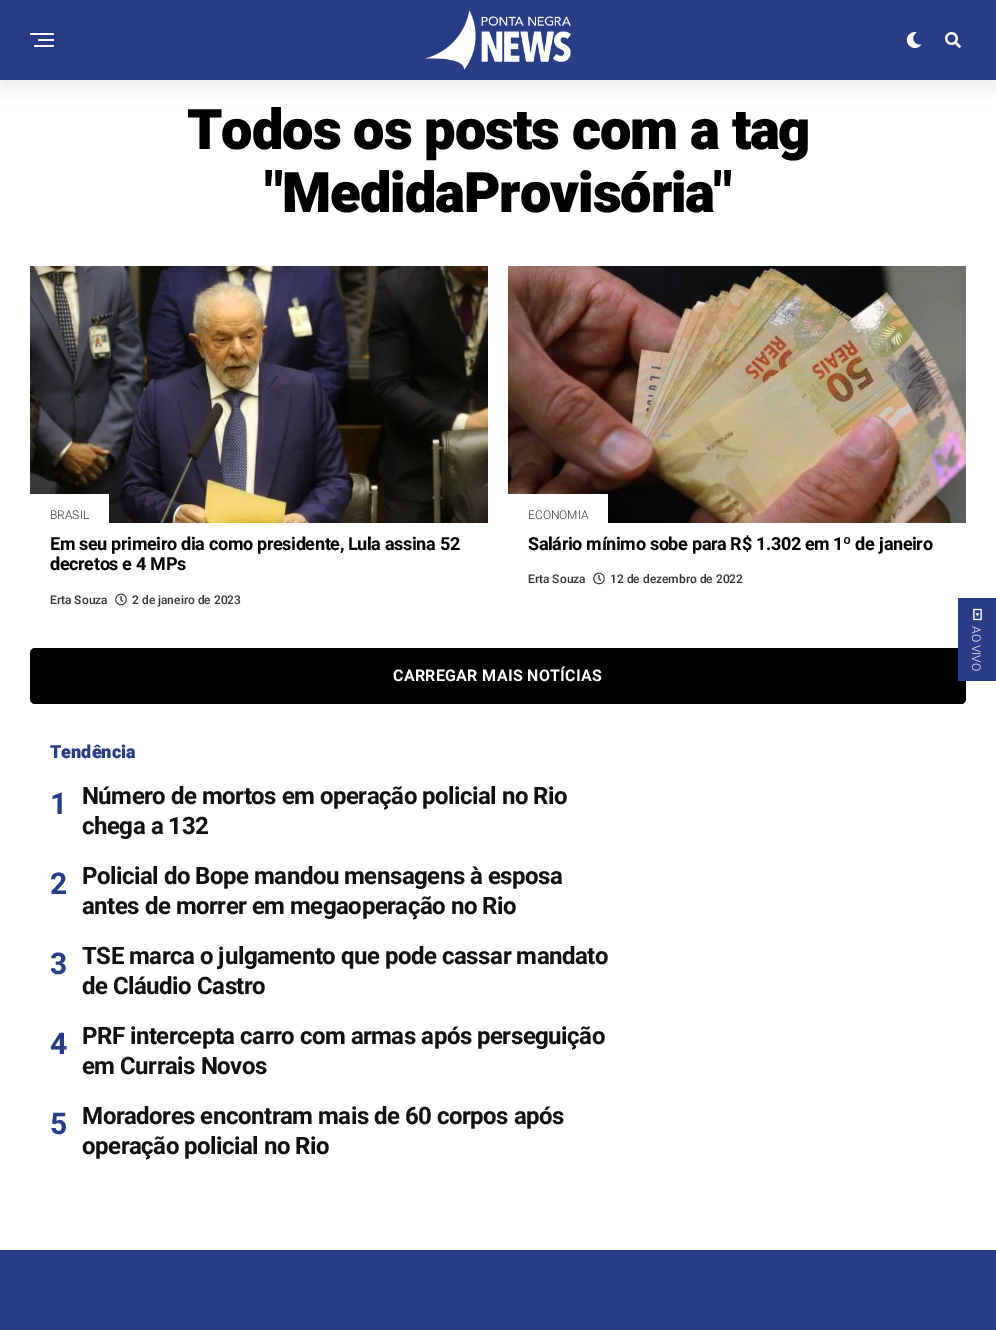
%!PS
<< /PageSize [996 1330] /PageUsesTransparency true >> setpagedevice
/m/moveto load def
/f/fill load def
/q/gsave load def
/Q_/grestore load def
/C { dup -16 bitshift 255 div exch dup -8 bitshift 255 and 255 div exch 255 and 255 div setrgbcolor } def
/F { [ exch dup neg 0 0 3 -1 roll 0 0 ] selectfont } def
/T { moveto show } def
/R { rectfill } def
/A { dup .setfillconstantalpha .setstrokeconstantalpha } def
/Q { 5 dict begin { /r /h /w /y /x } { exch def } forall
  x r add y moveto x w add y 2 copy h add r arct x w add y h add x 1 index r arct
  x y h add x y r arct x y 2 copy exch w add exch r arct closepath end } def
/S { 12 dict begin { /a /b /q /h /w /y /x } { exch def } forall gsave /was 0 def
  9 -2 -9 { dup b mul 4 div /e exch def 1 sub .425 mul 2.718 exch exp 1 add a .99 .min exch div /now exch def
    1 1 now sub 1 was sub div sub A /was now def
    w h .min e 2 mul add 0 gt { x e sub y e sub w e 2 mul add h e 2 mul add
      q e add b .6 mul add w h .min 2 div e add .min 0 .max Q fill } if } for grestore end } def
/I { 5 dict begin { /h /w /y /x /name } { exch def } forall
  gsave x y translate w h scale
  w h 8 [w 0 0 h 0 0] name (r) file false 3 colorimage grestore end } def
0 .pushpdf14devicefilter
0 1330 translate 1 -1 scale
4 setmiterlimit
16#FFFFFF C
0 0 996 1330 R
16#15151E C
0 8 996 80 0 8 .08 S
16#273E86 C
0 0 996 80 R
16#FFFFFF C
30 33 24 2 1 Q f
38 39 16 2 1 Q f
34 45 20 2 1 Q f
(1.rgb) 425 10 146 60 I
(2.rgb) 906 32 16 16 I
(3.rgb) 945 32 16 16 I
/Heebo-Black 56 F
16#000000 C
187 149 m -1.1 0 (Todos os posts com a tag) ashow
265 212 m -1.1 0 ("MedidaProvisória") ashow
(4.rgb) 30 266 458 257 I
16#FFFFFF C
30 494 79 29 R
/Roboto-Light 12 F
16#333333 C
(BRASIL) 50 519 T
/Heebo-Bold 18 F
16#000000 C
50 550 m -.35 0 (Em seu primeiro dia como presidente, Lula assina 52) ashow
50 570 m -.35 0 (decretos e 4 MPs) ashow
/Roboto-Medium 12 F
16#333333 C
(Erta Souza) 50 604 T
(5.rgb) 115 593 12 13 I
(2 de janeiro de 2023) 132 604 T
(6.rgb) 508 266 458 257 I
16#FFFFFF C
508 494 100 29 R
/Roboto-Light 12 F
16#333333 C
(ECONOMIA) 528 519 T
/Heebo-Bold 18 F
16#000000 C
528 550 m -.35 0 (Salário mínimo sobe para R$ 1.302 em 1º de janeiro) ashow
/Roboto-Medium 12 F
16#333333 C
(Erta Souza) 528 583 T
(5.rgb) 593 572 12 13 I
(12 de dezembro de 2022) 610 583 T
16#000000 C
30 648 936 56 5 Q f
/Roboto-Bold 16 F
16#FFFFFF C
393 681 m .3 0 (CARREGAR MAIS NOTÍCIAS) ashow
/Heebo-Black 18 F
16#273E86 C
(Tendência) 50 758 T
/Heebo-Bold 30 F
(1) 50 814 T
/Heebo-Bold 24 F
16#111111 C
82 804 m -.5 0 (Número de mortos em operação policial no Rio) ashow
82 834 m -.5 0 (chega a 132) ashow
/Heebo-Bold 30 F
16#273E86 C
(2) 50 894 T
/Heebo-Bold 24 F
16#111111 C
82 884 m -.5 0 (Policial do Bope mandou mensagens à esposa) ashow
82 914 m -.5 0 (antes de morrer em megaoperação no Rio) ashow
/Heebo-Bold 30 F
16#273E86 C
(3) 50 974 T
/Heebo-Bold 24 F
16#111111 C
82 964 m -.5 0 (TSE marca o julgamento que pode cassar mandato) ashow
82 994 m -.5 0 (de Cláudio Castro) ashow
/Heebo-Bold 30 F
16#273E86 C
(4) 50 1054 T
/Heebo-Bold 24 F
16#111111 C
82 1044 m -.5 0 (PRF intercepta carro com armas após perseguição) ashow
82 1074 m -.5 0 (em Currais Novos) ashow
/Heebo-Bold 30 F
16#273E86 C
(5) 50 1134 T
/Heebo-Bold 24 F
16#111111 C
82 1124 m -.5 0 (Moradores encontram mais de 60 corpos após) ashow
82 1154 m -.5 0 (operação policial no Rio) ashow
16#273E86 C
0 1250 996 80 R
958 598 38 83 R
(7.rgb) 973 608 9 13 I
/Roboto-Light 12 F
16#FFFFFF C
q 972 626 translate 90 rotate 0 0 m (AO VIVO) show Q_
.poppdf14devicefilter showpage
